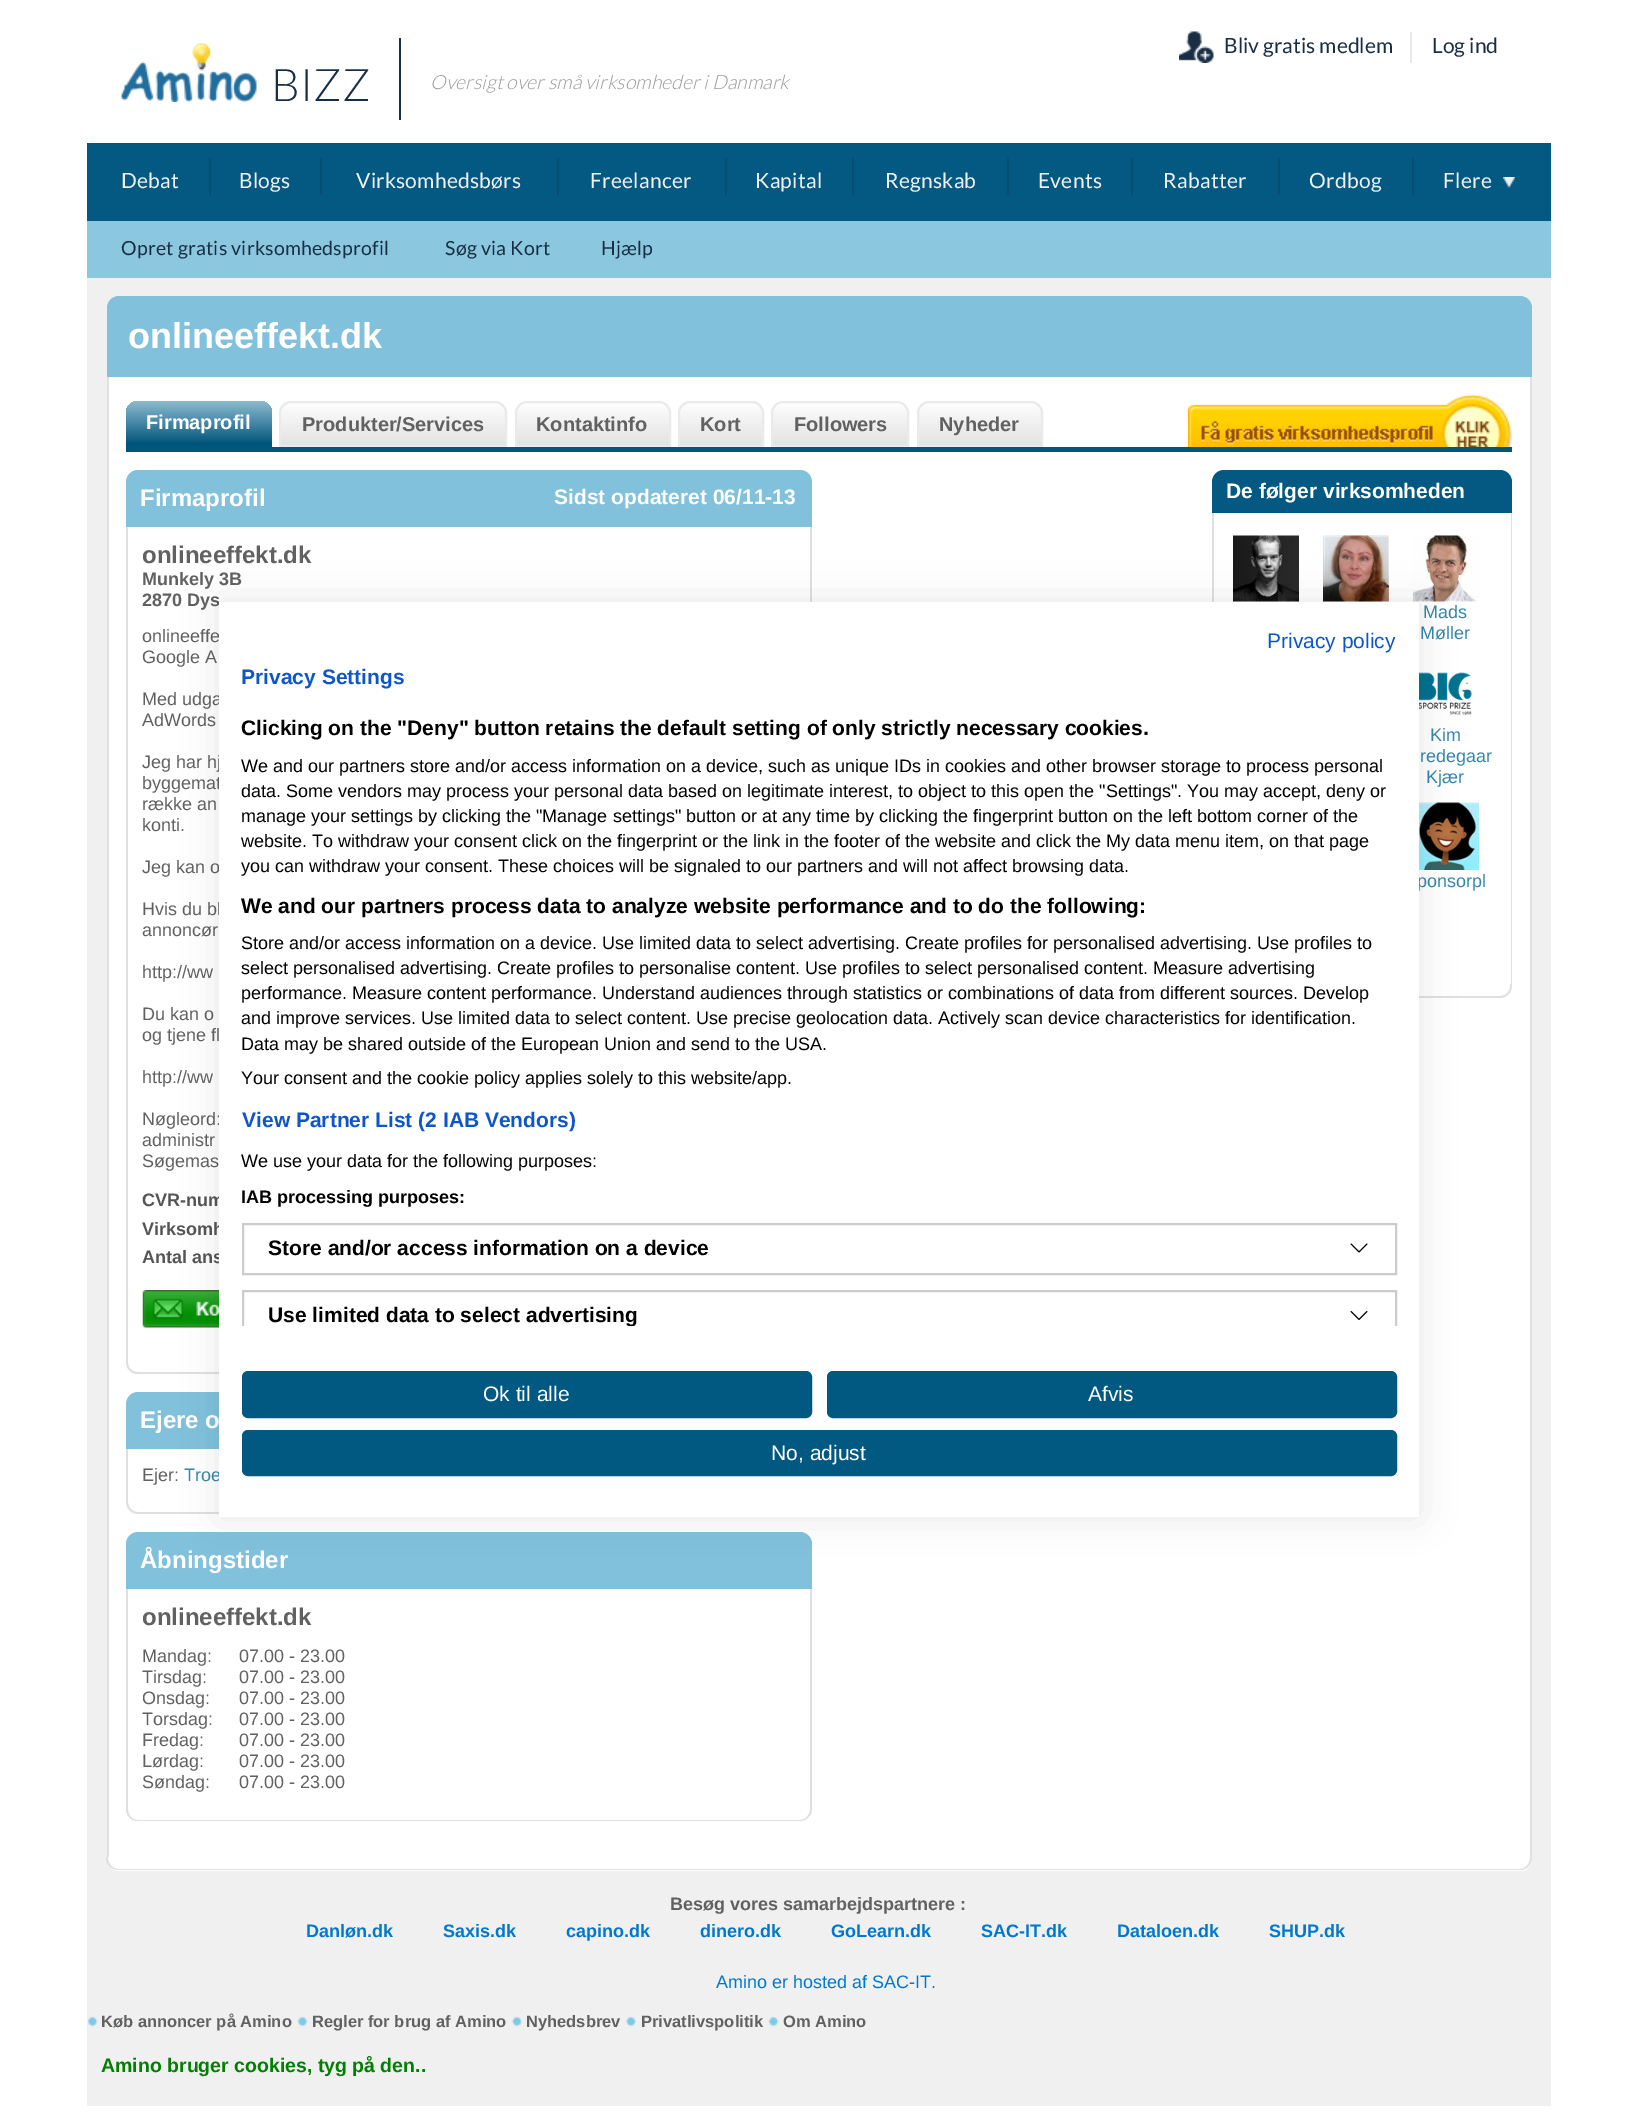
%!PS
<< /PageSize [1636 2117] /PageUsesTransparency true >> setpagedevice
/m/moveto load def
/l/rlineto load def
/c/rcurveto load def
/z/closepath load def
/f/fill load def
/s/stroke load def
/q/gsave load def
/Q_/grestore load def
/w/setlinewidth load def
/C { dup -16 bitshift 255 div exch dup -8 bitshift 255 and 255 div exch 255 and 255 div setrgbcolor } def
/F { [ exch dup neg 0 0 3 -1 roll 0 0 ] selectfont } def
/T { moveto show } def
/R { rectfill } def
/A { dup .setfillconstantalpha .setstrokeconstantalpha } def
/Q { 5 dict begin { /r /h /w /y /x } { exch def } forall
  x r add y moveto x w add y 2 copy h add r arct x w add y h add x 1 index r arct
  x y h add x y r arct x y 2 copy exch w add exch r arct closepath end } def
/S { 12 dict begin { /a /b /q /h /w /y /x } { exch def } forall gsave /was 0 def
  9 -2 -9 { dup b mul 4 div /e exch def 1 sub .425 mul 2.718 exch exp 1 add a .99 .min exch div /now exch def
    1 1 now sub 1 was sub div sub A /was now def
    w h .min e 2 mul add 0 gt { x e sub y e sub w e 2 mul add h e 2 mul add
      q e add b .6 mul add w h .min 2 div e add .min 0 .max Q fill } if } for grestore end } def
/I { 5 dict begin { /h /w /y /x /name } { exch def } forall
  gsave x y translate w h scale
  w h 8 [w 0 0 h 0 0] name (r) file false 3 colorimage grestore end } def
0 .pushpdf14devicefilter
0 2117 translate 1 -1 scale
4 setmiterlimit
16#FFFFFF C
0 0 1636 2117 R
(1.rgb) 1179 31 35 32 I
/Lato-Regular 21 F
16#182E44 C
(Bliv gratis medlem) 1224 53 T
16#E8E8E8 C
1410 32 2 31 R
16#182E44 C
(Log ind) 1432 53 T
(2.rgb) 121 43 136 59 I
399 38 2 82 R
/Lato-Light 45 F
(BIZZ) 271 101 T
/Lato-LightItalic 19.5 F
16#999999 C
(Oversigt over små virksomheder i Danmark) 430 89 T
16#035981 C
87 143 1464 78 R
/Lato-Regular 21 F
16#F0F0F0 C
121 188 m .25 0 (Debat) ashow
16#084D72 C
209 158 2 37 R
16#F0F0F0 C
239 188 m .25 0 (Blogs) ashow
16#084D72 C
320 158 2 37 R
16#F0F0F0 C
356 188 m .25 0 (Virksomhedsbørs) ashow
16#084D72 C
557 158 2 37 R
16#F0F0F0 C
590 188 m .25 0 (Freelancer) ashow
16#084D72 C
725 158 2 37 R
16#F0F0F0 C
755 188 m .25 0 (Kapital) ashow
16#084D72 C
852 158 2 37 R
16#F0F0F0 C
885 188 m .25 0 (Regnskab) ashow
16#084D72 C
1007 158 2 37 R
16#F0F0F0 C
1038 188 m .25 0 (Events) ashow
16#084D72 C
1131 158 2 37 R
16#F0F0F0 C
1163 188 m .25 0 (Rabatter) ashow
16#084D72 C
1278 158 2 37 R
16#F0F0F0 C
1309 188 m .25 0 (Ordbog) ashow
16#084D72 C
1412 158 2 37 R
16#F0F0F0 C
1443 188 m .25 0 (Flere) ashow
(3.rgb) 1503 177 12 11 I
16#8BC7DF C
87 221 1464 57 R
/Lato-Regular 19.5 F
16#182E44 C
121 255 m .2 0 (Opret gratis virksomhedsprofil) ashow
445 255 m .2 0 (Søg via Kort) ashow
601 255 m .2 0 (Hjælp) ashow
16#F0F0F0 C
87 278 1464 1828 R
16#81C1DC C
119 296 m 1401 0 l 6.5 0 12 5.5 12 12 c 0 69 l -1425 0 l 0 -69 l 0 -6.5 5.5 -12 12 -12 c z f
/LiberationSans-Bold 36 F
16#FFFFFF C
(onlineeffekt.dk) 128 348 T
109 377 1421 1480 R
16#E0E0E0 C
1530 377 2 1480 R
107 377 2 1480 R
q 138 401 m 122 0 l 6.5 0 12 5.5 12 12 c 0 31 l -146 0 l 0 -31 l 0 -6.5 5.5 -12 12 -12 c z clip newpath
<< /ShadingType 2 /ColorSpace /DeviceRGB /Coords [199 401 199 444] /Extend [true true] /Function << /FunctionType 3 /Domain [0 1] /Functions [<< /FunctionType 2 /Domain [0 1] /C0 [.549 .729 .812] /C1 [.549 .729 .812] /N 1 >> << /FunctionType 2 /Domain [0 1] /C0 [.549 .729 .812] /C1 [0 .333 .486] /N 1 >>] /Bounds [.01] /Encode [0 1 0 1] >> >> shfill Q_
16#00557C C
126 444 146 3 R
/LiberationSans-Bold 20 F
16#FFFFFF C
(Firmaprofil) 146 429 T
q
291 401 m 204 0 l 6.5 0 12 5.5 12 12 c 0 34 l -228 0 l 0 -34 l 0 -6.5 5.5 -12 12 -12 c z clip newpath
q 279 402 m 228 0 l 0 43 l -228 0 l z clip newpath
<< /ShadingType 2 /ColorSpace /DeviceRGB /Coords [393 402 393 446] /Extend [true true] /Function << /FunctionType 3 /Domain [0 1] /Functions [<< /FunctionType 2 /Domain [0 1] /C0 [.996 .996 .996] /C1 [.996 .996 .996] /N 1 >> << /FunctionType 2 /Domain [0 1] /C0 [.996 .996 .996] /C1 [.886 .886 .886] /N 1 >>] /Bounds [.01] /Encode [0 1 0 1] >> >> shfill Q_
Q_
16#EAEAEA C
2 w
291 402 m 204 0 l 6 0 11 5 11 11 c 0 33 l -226 0 l 0 -33 l 0 -6 5 -11 11 -11 c z s
16#616161 C
(Produkter/Services) 302 431 T
q
527 401 m 132 0 l 6.5 0 12 5.5 12 12 c 0 34 l -156 0 l 0 -34 l 0 -6.5 5.5 -12 12 -12 c z clip newpath
q 515 402 m 156 0 l 0 43 l -156 0 l z clip newpath
<< /ShadingType 2 /ColorSpace /DeviceRGB /Coords [593 402 593 446] /Extend [true true] /Function << /FunctionType 3 /Domain [0 1] /Functions [<< /FunctionType 2 /Domain [0 1] /C0 [.996 .996 .996] /C1 [.996 .996 .996] /N 1 >> << /FunctionType 2 /Domain [0 1] /C0 [.996 .996 .996] /C1 [.886 .886 .886] /N 1 >>] /Bounds [.01] /Encode [0 1 0 1] >> >> shfill Q_
Q_
16#EAEAEA C
527 402 m 132 0 l 6 0 11 5 11 11 c 0 33 l -154 0 l 0 -33 l 0 -6 5 -11 11 -11 c z s
16#616161 C
(Kontaktinfo) 536 431 T
q
690 401 m 62 0 l 6.5 0 12 5.5 12 12 c 0 34 l -86 0 l 0 -34 l 0 -6.5 5.5 -12 12 -12 c z clip newpath
q 678 402 m 86 0 l 0 43 l -86 0 l z clip newpath
<< /ShadingType 2 /ColorSpace /DeviceRGB /Coords [721 402 721 446] /Extend [true true] /Function << /FunctionType 3 /Domain [0 1] /Functions [<< /FunctionType 2 /Domain [0 1] /C0 [.996 .996 .996] /C1 [.996 .996 .996] /N 1 >> << /FunctionType 2 /Domain [0 1] /C0 [.996 .996 .996] /C1 [.886 .886 .886] /N 1 >>] /Bounds [.01] /Encode [0 1 0 1] >> >> shfill Q_
Q_
16#EAEAEA C
690 402 m 62 0 l 6 0 11 5 11 11 c 0 33 l -84 0 l 0 -33 l 0 -6 5 -11 11 -11 c z s
16#616161 C
(Kort) 700 431 T
q
783 401 m 114 0 l 6.5 0 12 5.5 12 12 c 0 34 l -138 0 l 0 -34 l 0 -6.5 5.5 -12 12 -12 c z clip newpath
q 771 402 m 138 0 l 0 43 l -138 0 l z clip newpath
<< /ShadingType 2 /ColorSpace /DeviceRGB /Coords [840 402 840 446] /Extend [true true] /Function << /FunctionType 3 /Domain [0 1] /Functions [<< /FunctionType 2 /Domain [0 1] /C0 [.996 .996 .996] /C1 [.996 .996 .996] /N 1 >> << /FunctionType 2 /Domain [0 1] /C0 [.996 .996 .996] /C1 [.886 .886 .886] /N 1 >>] /Bounds [.01] /Encode [0 1 0 1] >> >> shfill Q_
Q_
16#EAEAEA C
783 402 m 114 0 l 6 0 11 5 11 11 c 0 33 l -136 0 l 0 -33 l 0 -6 5 -11 11 -11 c z s
16#616161 C
(Followers) 794 431 T
q
929 401 m 102 0 l 6.5 0 12 5.5 12 12 c 0 34 l -126 0 l 0 -34 l 0 -6.5 5.5 -12 12 -12 c z clip newpath
q 917 402 m 126 0 l 0 43 l -126 0 l z clip newpath
<< /ShadingType 2 /ColorSpace /DeviceRGB /Coords [980 402 980 446] /Extend [true true] /Function << /FunctionType 3 /Domain [0 1] /Functions [<< /FunctionType 2 /Domain [0 1] /C0 [.996 .996 .996] /C1 [.996 .996 .996] /N 1 >> << /FunctionType 2 /Domain [0 1] /C0 [.996 .996 .996] /C1 [.886 .886 .886] /N 1 >>] /Bounds [.01] /Encode [0 1 0 1] >> >> shfill Q_
Q_
16#EAEAEA C
929 402 m 102 0 l 6 0 11 5 11 11 c 0 33 l -124 0 l 0 -33 l 0 -6 5 -11 11 -11 c z s
16#616161 C
(Nyheder) 939 431 T
(4.rgb) 1188 394 324 53 I
16#00557C C
126 447 1386 5 R
16#81C1DC C
138 470 m 662 0 l 6.5 0 12 5.5 12 12 c 0 45 l -686 0 l 0 -45 l 0 -6.5 5.5 -12 12 -12 c z f
/LiberationSans-Bold 24 F
16#FFFFFF C
(Firmaprofil) 140 506 T
/LiberationSans-Bold 21 F
(Sidst opdateret 06/11-13) 554 504 T
16#E0E0E0 C
810 527 2 75 R
126 1360 m 686 0 l 0 2 l 0 7 -6 12 -12 12 c -662 0 l -7 0 -12 -5 -12 -12 c z 128 1360 m 682 0 l 0 2 l 0 6 -5 10 -10 10 c -662 0 l -6 0 -10 -4 -10 -10 c z eofill
126 527 2 834 R
/LiberationSans-Bold 24 F
16#616161 C
(onlineeffekt.dk) 142 563 T
/LiberationSans-Bold 18 F
(Munkely 3B) 142 585 T
(2870 Dys) 142 606 T
/LiberationSans-Regular 18 F
(onlineeffe) 142 642 T
(Google A) 142 663 T
(Med udga) 142 705 T
(AdWords) 142 726 T
(Jeg har hj) 142 768 T
(byggemat) 142 789 T
(række an) 142 810 T
(konti.) 142 831 T
(Jeg kan o) 142 873 T
(Hvis du bl) 142 915 T
(annoncør) 142 936 T
(http://ww) 142 978 T
(Du kan o) 142 1020 T
(og tjene fl) 142 1041 T
(http://ww) 142 1083 T
(Nøgleord:) 142 1125 T
(administr) 142 1146 T
(Søgemas) 142 1167 T
/LiberationSans-Bold 18 F
16#555555 C
(CVR-num) 142 1206 T
(Virksomh) 142 1235 T
(Antal ans) 142 1263 T
(5.rgb) 142 1290 77 38 I
16#81C1DC C
138 1392 m 662 0 l 6.5 0 12 5.5 12 12 c 0 45 l -686 0 l 0 -45 l 0 -6.5 5.5 -12 12 -12 c z f
/LiberationSans-Bold 24 F
16#FFFFFF C
(Ejere o) 140 1428 T
16#E0E0E0 C
126 1449 2 51 R
/LiberationSans-Regular 18 F
16#616161 C
(Ejer:) 142 1481 T
16#3488AD C
(Troe) 184 1481 T
16#E0E0E0 C
126 1500 m 686 0 l 0 2 l 0 6 -6 12 -12 12 c -662 0 l -7 0 -12 -6 -12 -12 c z 128 1500 m 682 0 l 0 2 l 0 5 -5 10 -10 10 c -662 0 l -6 0 -10 -5 -10 -10 c z eofill
16#81C1DC C
138 1532 m 662 0 l 6.5 0 12 5.5 12 12 c 0 45 l -686 0 l 0 -45 l 0 -6.5 5.5 -12 12 -12 c z f
/LiberationSans-Bold 24 F
16#FFFFFF C
(Åbningstider) 140 1568 T
16#E0E0E0 C
810 1589 2 219 R
126 1589 2 219 R
16#616161 C
(onlineeffekt.dk) 142 1625 T
/LiberationSans-Regular 18 F
(Mandag:) 142 1662 T
(07.00 - 23.00) 239 1662 T
(Tirsdag:) 142 1683 T
(07.00 - 23.00) 239 1683 T
q
143 1688 652 21 rectclip
(Onsdag:) 142 1704 T
Q_
(07.00 - 23.00) 239 1704 T
(Torsdag:) 142 1725 T
(07.00 - 23.00) 239 1725 T
(Fredag:) 142 1746 T
(07.00 - 23.00) 239 1746 T
(Lørdag:) 142 1767 T
(07.00 - 23.00) 239 1767 T
(Søndag:) 142 1788 T
(07.00 - 23.00) 239 1788 T
16#E0E0E0 C
126 1808 m 686 0 l 0 1 l 0 7 -6 12 -12 12 c -662 0 l -7 0 -12 -5 -12 -12 c z 128 1808 m 682 0 l 0 1 l 0 6 -5 11 -10 11 c -662 0 l -6 0 -10 -5 -10 -11 c z eofill
16#035981 C
1224 470 m 276 0 l 6.5 0 12 5.5 12 12 c 0 31 l -300 0 l 0 -31 l 0 -6.5 5.5 -12 12 -12 c z f
/LiberationSans-Bold 21 F
16#FFFFFF C
(De følger virksomheden) 1226 498 T
16#E0E0E0 C
1212 513 2 89 R
(6.rgb) 1233 535 66 67 I
(7.rgb) 1323 535 66 67 I
(8.rgb) 1413 535 66 67 I
/LiberationSans-Regular 18 F
16#3488AD C
(Mads) 1423 618 T
(Møller) 1420 639 T
(9.rgb) 1419 672 53 44 I
(Kim) 1430 741 T
(redegaar) 1420 762 T
(Kjær) 1426 783 T
(10.rgb) 1419 802 60 68 I
(ponsorpl) 1417 887 T
16#E0E0E0 C
1511 513 1 471 R
1212 984 m 300 0 l 0 2 l 0 6 -5 12 -12 12 c -276 0 l -7 0 -12 -6 -12 -12 c z 1214 984 m 296 0 l 0 2 l 0 5 -4 10 -10 10 c -276 0 l -6 0 -10 -5 -10 -10 c z eofill
16#FFFFFF C
107 1857 m 1425 0 l 0 2 l 0 6.5 -5.5 12 -12 12 c -1401 0 l -6.5 0 -12 -5.5 -12 -12 c z f
16#E0E0E0 C
106 1857 m 1426 0 l 0 1 l 0 7 -6 12 -12 12 c -1402 0 l -6 0 -12 -5 -12 -12 c z 108 1857 m 1422 0 l 0 1 l 0 6 -5 11 -10 11 c -1402 0 l -5 0 -10 -5 -10 -11 c z eofill
/LiberationSans-Bold 18 F
16#616161 C
(Besøg vores samarbejdspartnere :) 670 1910 T
16#0178CB C
(Danløn.dk) 306 1937 T
(Saxis.dk) 443 1937 T
(capino.dk) 566 1937 T
(dinero.dk) 700 1937 T
(GoLearn.dk) 831 1937 T
(SAC-IT.dk) 981 1937 T
(Dataloen.dk) 1117 1937 T
(SHUP.dk) 1269 1937 T
/LiberationSans-Regular 18 F
(Amino er hosted af SAC-IT.) 716 1988 T
(11.rgb) 87 2016 11 11 I
/LiberationSans-Bold 16.5 F
16#616161 C
(Køb annoncer på Amino) 101 2027 T
(12.rgb) 297 2016 11 11 I
(Regler for brug af Amino) 312 2027 T
(13.rgb) 511 2016 11 11 I
(Nyhedsbrev) 526 2027 T
(14.rgb) 625 2016 11 11 I
(Privatlivspolitik) 641 2027 T
(11.rgb) 768 2016 11 11 I
(Om Amino) 783 2027 T
/LiberationSans-Bold 19.5 F
16#008000 C
(Amino bruger cookies, tyg på den..) 101 2072 T
16#000000 C
219 602 1200 915 0 18 .1 S
16#FFFFFF C
219 602 1200 915 R
/LiberationSans-Regular 21 F
16#0D56C9 C
(Privacy policy) 1267 648 T
/LiberationSans-Bold 21 F
(Privacy Settings) 241 684 T
16#000000 C
(Clicking on the "Deny" button retains the default setting of only strictly necessary cookies.) 241 735 T
/LiberationSans-Regular 18 F
(We and our partners store and/or access information on a device, such as unique IDs in cookies and other browser storage to process personal) 241 772 T
(data. Some vendors may process your personal data based on legitimate interest, to object to this open the "Settings". You may accept, deny or) 241 797 T
(manage your settings by clicking the "Manage settings" button or at any time by clicking the fingerprint button on the left bottom corner of the) 241 822 T
(website. To withdraw your consent click on the fingerprint or the link in the footer of the website and click the My data menu item, on that page) 241 847 T
(you can withdraw your consent. These choices will be signaled to our partners and will not affect browsing data.) 241 872 T
/LiberationSans-Bold 21 F
(We and our partners process data to analyze website performance and to do the following:) 241 913 T
/LiberationSans-Regular 18 F
(Store and/or access information on a device. Use limited data to select advertising. Create profiles for personalised advertising. Use profiles to) 241 949 T
(select personalised advertising. Create profiles to personalise content. Use profiles to select personalised content. Measure advertising) 241 974 T
(performance. Measure content performance. Understand audiences through statistics or combinations of data from different sources. Develop) 241 999 T
(and improve services. Use limited data to select content. Use precise geolocation data. Actively scan device characteristics for identification.) 241 1024 T
(Data may be shared outside of the European Union and send to the USA.) 241 1050 T
(Your consent and the cookie policy applies solely to this website/app.) 241 1084 T
/LiberationSans-Bold 21 F
16#0D56C9 C
(View Partner List \(2 IAB Vendors\)) 242 1127 T
/LiberationSans-Regular 18 F
16#000000 C
(We use your data for the following purposes:) 241 1167 T
/LiberationSans-Bold 18 F
(IAB processing purposes:) 241 1203 T
16#CCCCCC C
243 1224 1153 50 rectstroke
/LiberationSans-Bold 21 F
16#000000 C
(Store and/or access information on a device) 268 1255 T
(15.rgb) 1350 1243 18 10 I
q
219 651 1200 675 rectclip
16#CCCCCC C
243 1291 1153 51 rectstroke
Q_
q
269 1301 369 25 rectclip
(Use limited data to select advertising) 268 1322 T
Q_
(16.rgb) 1350 1311 18 9 I
16#015981 C
243 1372 568 45 5 Q q f Q_
s
/LiberationSans-Regular 21 F
16#FFFFFF C
(Ok til alle) 483 1401 T
16#015981 C
828 1372 568 45 5 Q q f Q_
s
16#FFFFFF C
(Afvis) 1088 1401 T
16#015981 C
243 1431 1153 44 5 Q q f Q_
s
16#FFFFFF C
(No, adjust) 771 1460 T
.poppdf14devicefilter showpage
